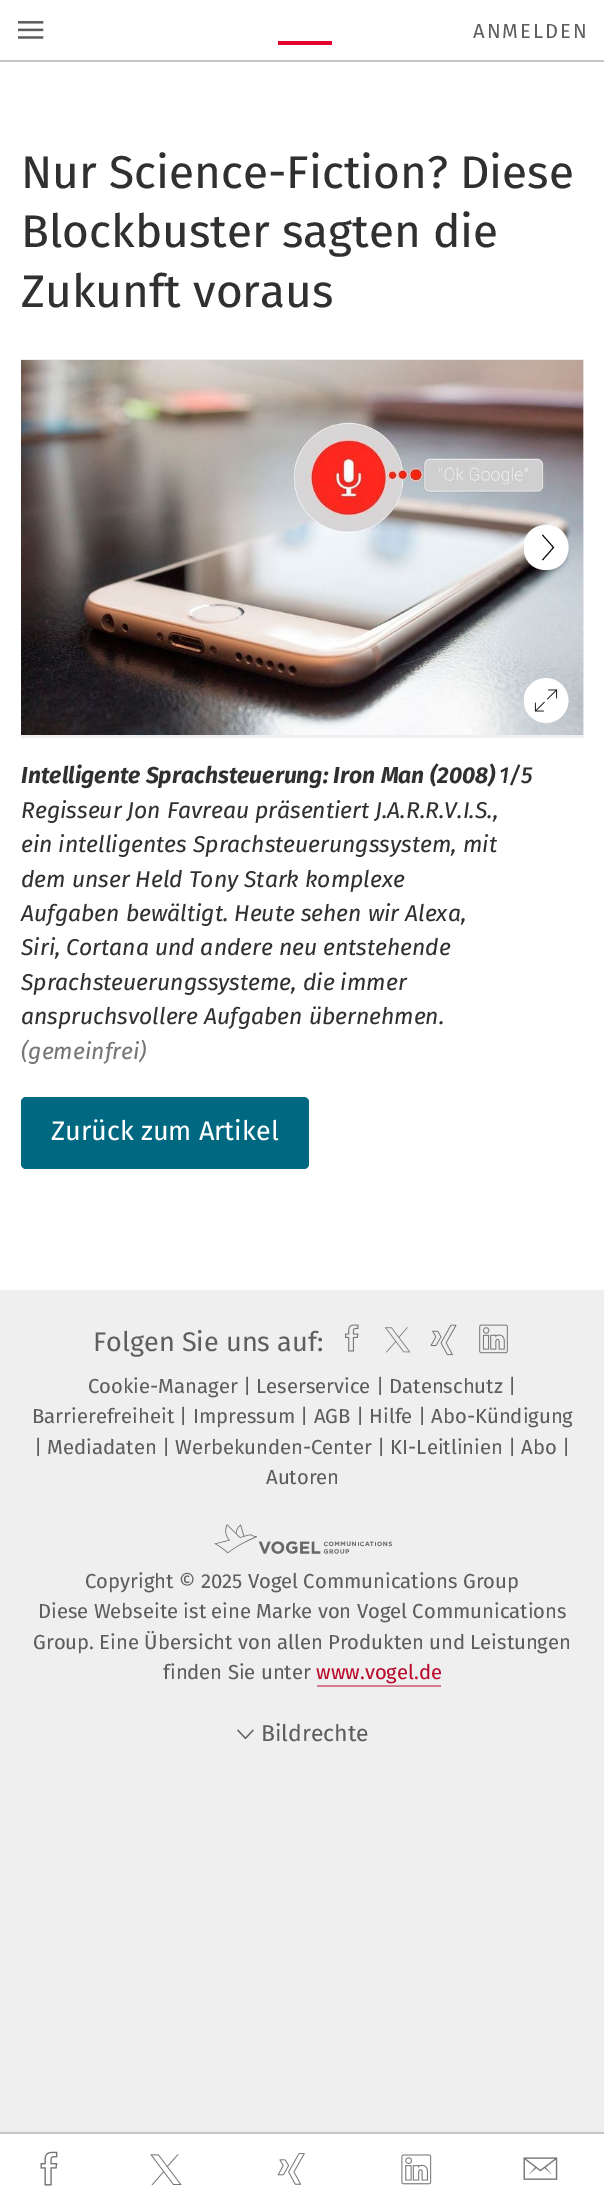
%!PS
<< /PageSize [604 2206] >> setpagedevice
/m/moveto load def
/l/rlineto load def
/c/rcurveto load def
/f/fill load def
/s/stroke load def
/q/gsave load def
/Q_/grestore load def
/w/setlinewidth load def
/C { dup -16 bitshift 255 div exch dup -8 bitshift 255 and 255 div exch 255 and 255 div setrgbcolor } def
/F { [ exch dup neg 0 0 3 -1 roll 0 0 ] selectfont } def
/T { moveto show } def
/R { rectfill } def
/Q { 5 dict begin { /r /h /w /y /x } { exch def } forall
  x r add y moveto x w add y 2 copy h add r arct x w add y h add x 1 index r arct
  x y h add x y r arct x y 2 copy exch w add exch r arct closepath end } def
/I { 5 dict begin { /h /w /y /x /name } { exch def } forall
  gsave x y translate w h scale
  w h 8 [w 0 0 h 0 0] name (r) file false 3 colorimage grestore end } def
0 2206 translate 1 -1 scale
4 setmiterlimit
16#EFEFEF C
0 0 604 2206 R
16#FFFFFF C
0 62 604 1228 R
0 0 604 60 R
16#C6C6C6 C
0 60 604 2 R
(1.rgb) 18 21 26 18 I
/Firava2-Regular 20.25 F
16#5E5E5E C
473 38 m 2 0 (ANMELDEN) ashow
16#E3032E C
278 41 54 4 R
/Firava-Regular 45.9 F
16#303030 C
(Nur Science-Fiction? Diese) 21 188 T
(Blockbuster sagten die) 21 247 T
(Zukunft voraus) 21 307 T
16#EFEFEF C
21 359 563 379 R
(2.rgb) 21 360 563 375 I
q
524 525 45 45 rectclip
16#FFFFFF C
546 525 m -30 0 -30 45 0 45 c 30 0 30 -45 0 -45 c f
Q_
16#000000 C
.9 w
542.5 560 m 11 -12.5 l -11 -12.5 l s
(3.rgb) 524 678 45 45 I
/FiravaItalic-BoldItalic 22.95 F
16#303030 C
(Intelligente Sprachsteuerung: Iron Man \(2008\)) 21 783 T
/FiravaItalic-Italic 22.95 F
(Regisseur Jon Favreau präsentiert J.A.R.R.V.I.S.,) 21 818 T
(ein intelligentes Sprachsteuerungssystem, mit) 21 852 T
(dem unser Held Tony Stark komplexe) 21 887 T
(Aufgaben bewältigt. Heute sehen wir Alexa,) 21 921 T
(Siri, Cortana und andere neu entstehende) 21 955 T
(Sprachsteuerungssysteme, die immer) 21 990 T
(anspruchsvollere Aufgaben übernehmen.) 21 1024 T
16#767676 C
(\(gemeinfrei\)) 21 1059 T
/FiravaItalic-MediumItalic 22.95 F
16#303030 C
(1/5) 499 783 T
16#006881 C
21 1097 288 72 5 Q f
/Firava-Regular 27 F
16#FFFFFF C
(Zurück zum Artikel) 51 1140 T
0 2134 604 72 R
16#C6C6C6 C
0 2132 604 2 R
(4.rgb) 40 2151 18 35 I
(5.rgb) 150 2154 32 31 I
(6.rgb) 277 2153 28 32 I
(7.rgb) 401 2154 31 31 I
(8.rgb) 523 2157 35 23 I
/Firava2-Regular 27 F
16#5E5E5E C
(Folgen Sie uns auf:) 93 1351 T
(9.rgb) 345 1324 14 28 I
(10.rgb) 384 1327 27 26 I
(11.rgb) 430 1324 27 32 I
(12.rgb) 479 1324 29 30 I
/Firava-Regular 20.25 F
(Cookie-Manager | Leserservice | Datenschutz |) 88 1393 T
(Barrierefreiheit | Impressum | AGB | Hilfe | Abo-Kündigung) 32 1423 T
(| Mediadaten | Werbekunden-Center | KI-Leitlinien | Abo |) 34 1454 T
(Autoren) 266 1484 T
(13.rgb) 214 1524 178 30 I
(Copyright © 2025 Vogel Communications Group) 85 1588 T
(Diese Webseite ist eine Marke von Vogel Communications) 38 1618 T
(Group. Eine Übersicht von allen Produkten und Leistungen) 33 1649 T
(finden Sie unter) 163 1679 T
16#BA0A2C C
(www.vogel.de) 316 1679 T
16#D57D8E C
317 1685 124 2 R
(14.rgb) 237 1729 17 11 I
/Firava-Regular 22.95 F
16#5E5E5E C
(Bildrechte) 261 1741 T
showpage
